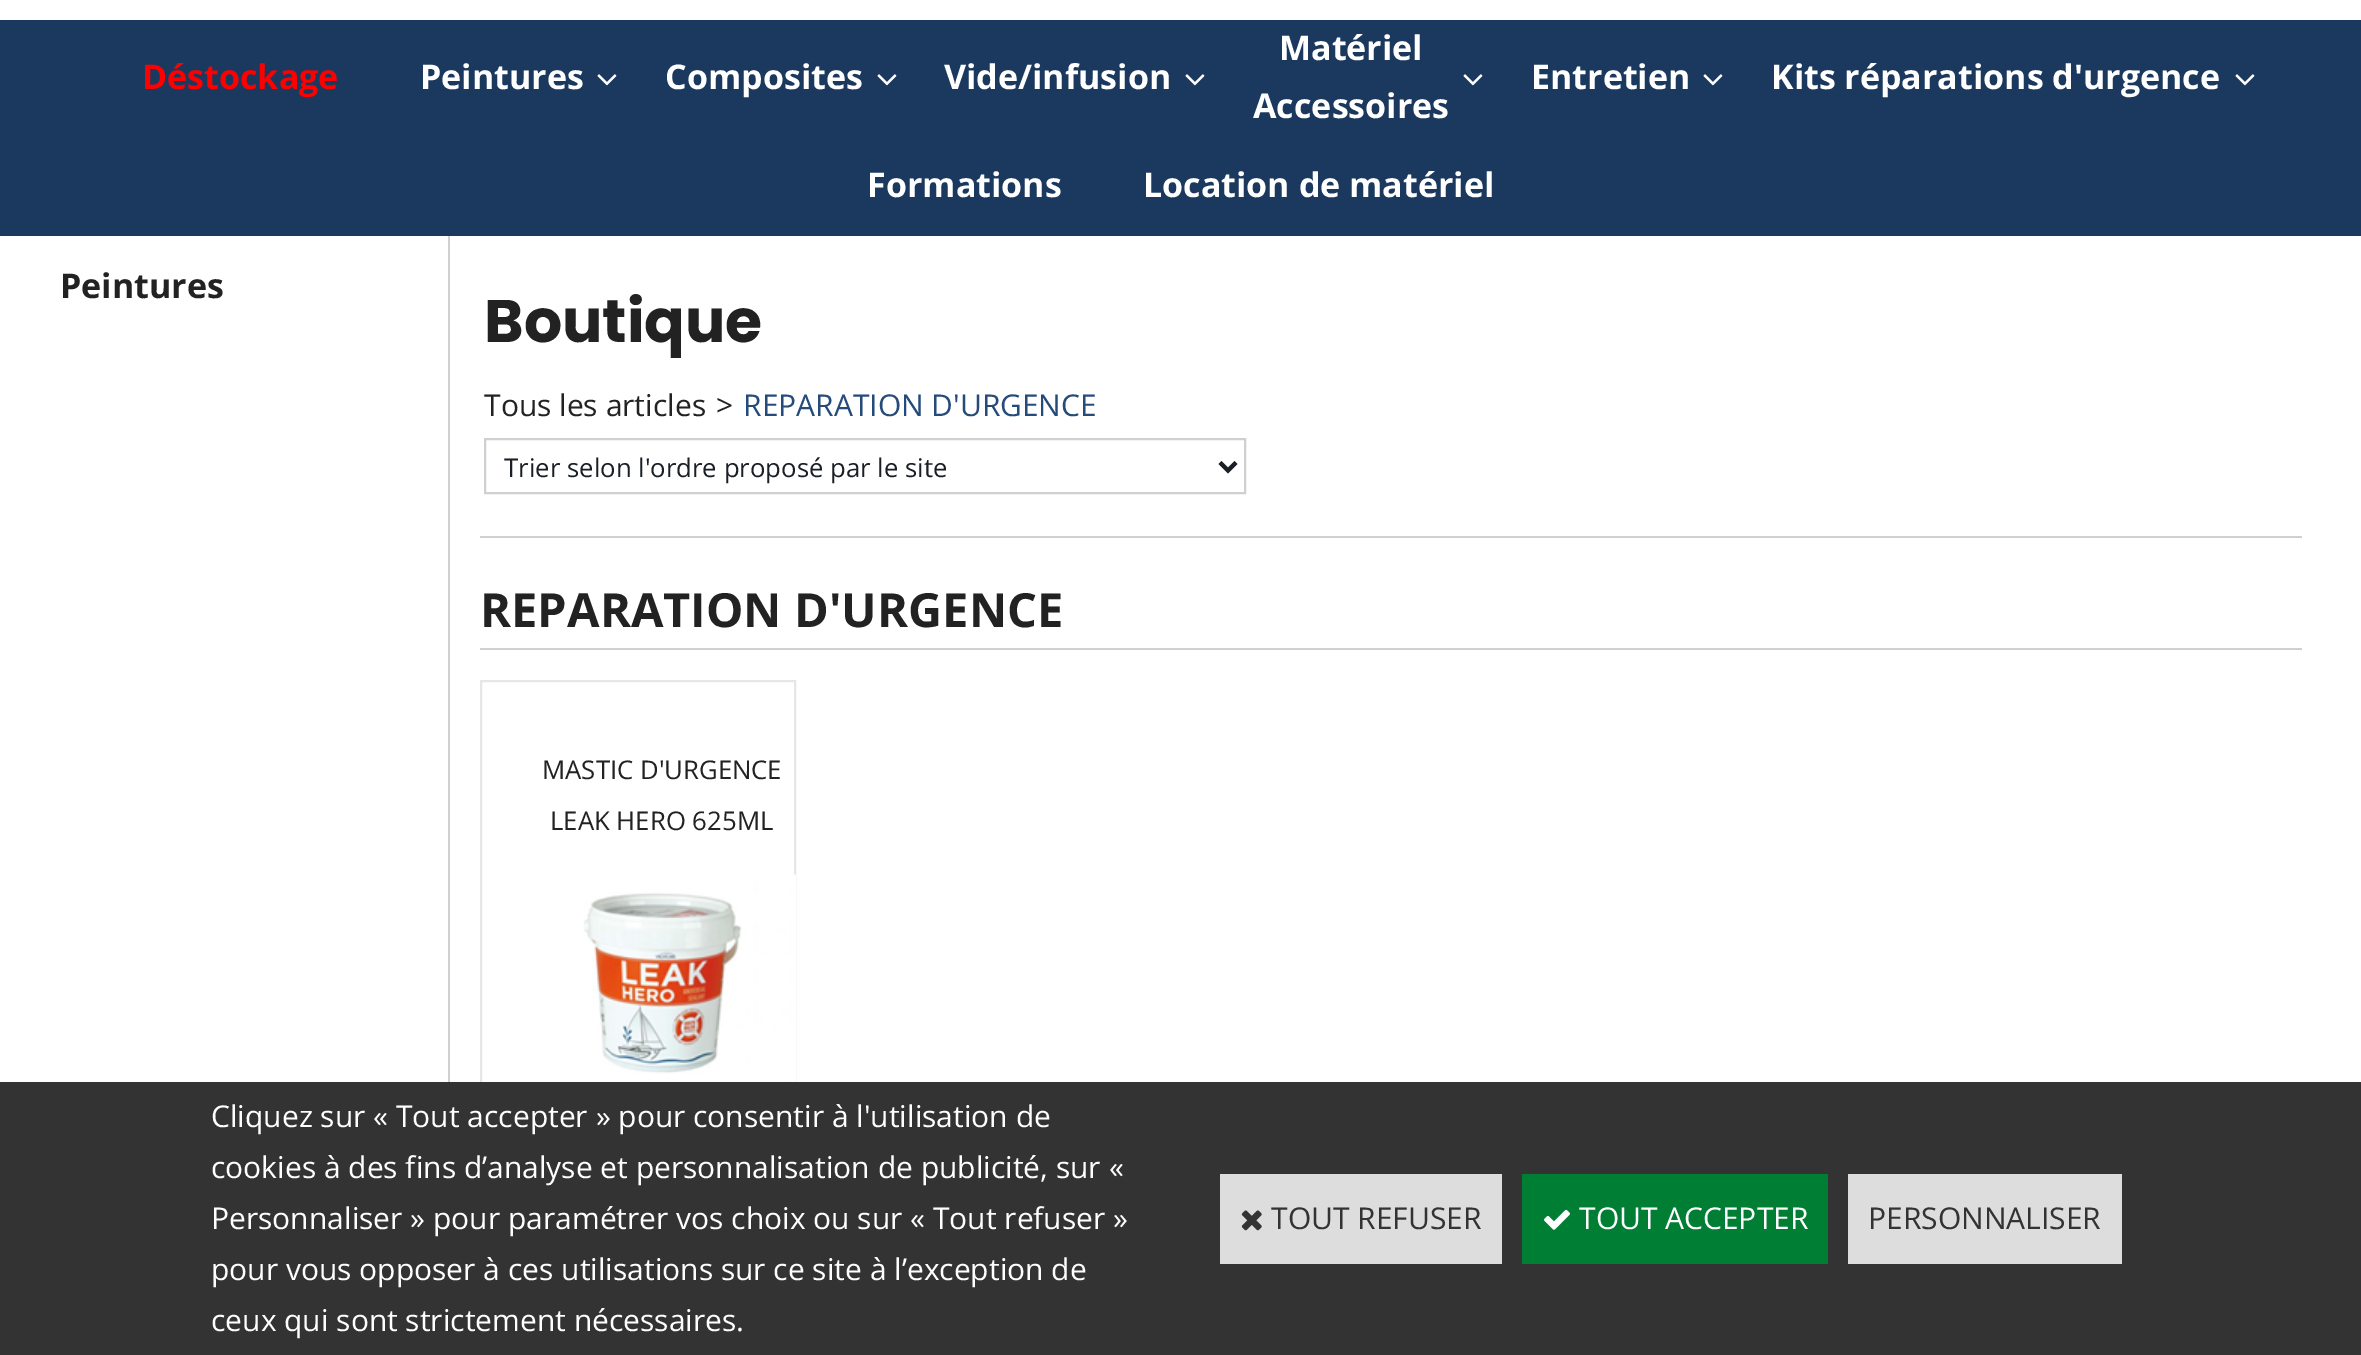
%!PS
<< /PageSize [2361 1355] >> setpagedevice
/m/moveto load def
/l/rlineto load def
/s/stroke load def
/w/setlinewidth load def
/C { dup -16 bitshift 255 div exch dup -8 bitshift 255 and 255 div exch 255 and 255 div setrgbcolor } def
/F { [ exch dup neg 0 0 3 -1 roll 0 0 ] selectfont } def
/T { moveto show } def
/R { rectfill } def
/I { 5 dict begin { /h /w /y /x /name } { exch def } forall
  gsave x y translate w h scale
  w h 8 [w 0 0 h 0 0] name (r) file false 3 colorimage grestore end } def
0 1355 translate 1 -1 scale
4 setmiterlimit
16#FFFFFF C
0 0 2361 1355 R
16#1B395E C
0 20 2361 216 R
/OpenSans-Bold 34 F
16#FF0000 C
(Déstockage) 142 89 T
16#FFFFFF C
(Peintures) 420 89 T
(1.rgb) 597 74 20 12 I
(Composites) 665 89 T
(1.rgb) 877 74 20 12 I
(Vide/infusion) 944 89 T
(1.rgb) 1185 74 20 12 I
(Matériel) 1279 60 T
(1.rgb) 1463 74 20 12 I
(Accessoires) 1253 118 T
(Entretien) 1531 89 T
(1.rgb) 1703 74 20 12 I
(Kits réparations d'urgence) 1771 89 T
(1.rgb) 2235 74 20 12 I
(Formations) 867 197 T
(Location de matériel) 1143 197 T
16#D0D0D0 C
448 236 2 846 R
16#222222 C
(Peintures) 60 298 T
16#D0D0D0 C
480 536 1822 2 R
/Poppins-Bold 60 F
16#222222 C
(Boutique) 484 342 T
/OpenSans-Regular 30 F
(Tous les articles) 484 416 T
(>) 716 416 T
16#254B7B C
(REPARATION D'URGENCE) 743 416 T
16#D0D0D0 C
2 w
485 439 760 54 rectstroke
16#1A1F26 C
4 w
1220 462.5 m 8 8 l 8 -8 l s
/OpenSans-Regular 25.75 F
(Trier selon l'ordre proposé par le site) 504 477 T
16#D0D0D0 C
480 648 1822 2 R
/OpenSans-Bold 47.1 F
16#222222 C
(REPARATION D'URGENCE) 480 627 T
16#E6E6E6 C
2 w
481 681 314 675 rectstroke
/OpenSans-Regular 25.75 F
16#222222 C
(MASTIC D'URGENCE) 542 779 T
(LEAK HERO 625ML) 550 830 T
(2.rgb) 583 874 213 208 I
16#333333 C
0 1082 2361 273 R
/OpenSans-Regular 30 F
16#FFFFFF C
(Cliquez sur « Tout accepter » pour consentir à l'utilisation de) 211 1127 T
(cookies à des fins d’analyse et personnalisation de publicité, sur «) 211 1178 T
(Personnaliser » pour paramétrer vos choix ou sur « Tout refuser ») 211 1229 T
(pour vous opposer à ces utilisations sur ce site à l’exception de) 211 1280 T
(ceux qui sont strictement nécessaires.) 211 1331 T
16#DDDDDD C
1220 1174 282 90 R
(3.rgb) 1241 1210 21 21 I
16#333333 C
(TOUT REFUSER) 1271 1229 T
16#007E33 C
1522 1174 306 90 R
(4.rgb) 1544 1209 26 21 I
16#FFFFFF C
(TOUT ACCEPTER) 1579 1229 T
16#DDDDDD C
1848 1174 274 90 R
16#333333 C
(PERSONNALISER) 1868 1229 T
showpage
